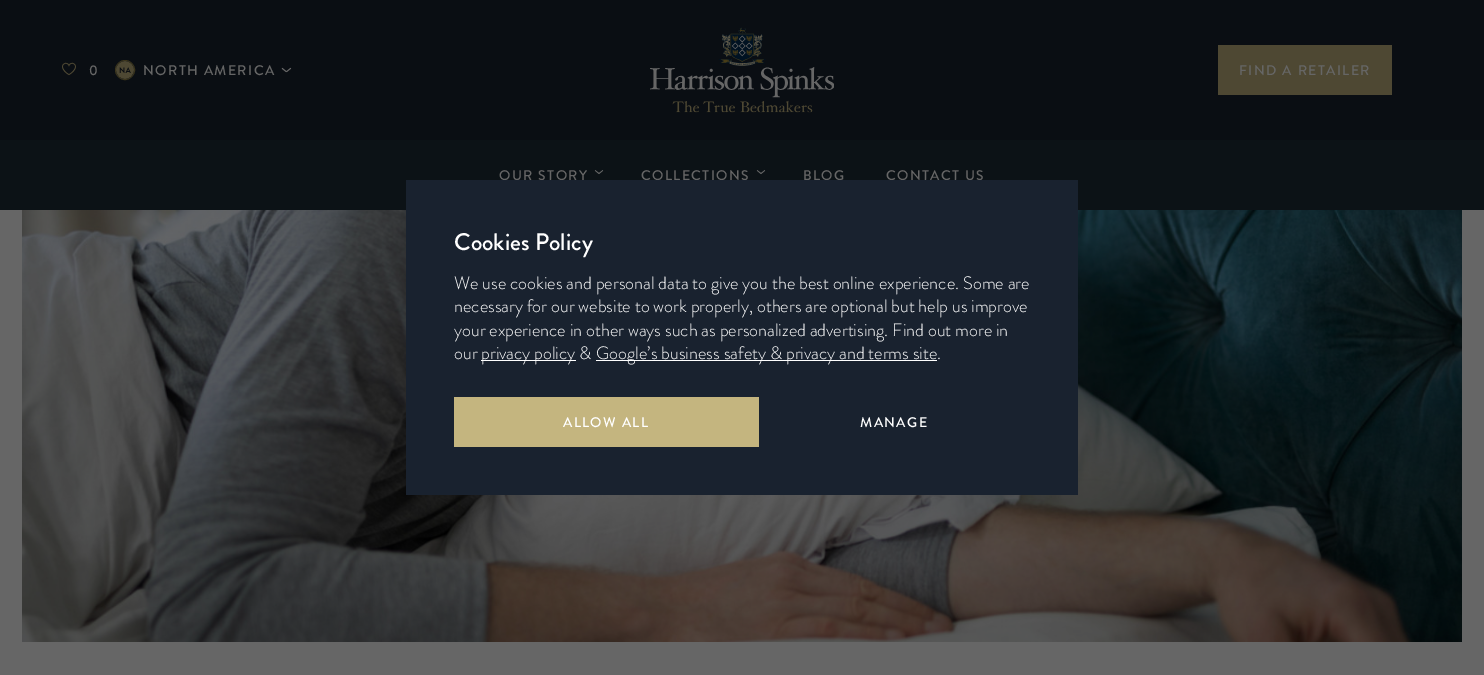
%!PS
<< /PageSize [1484 675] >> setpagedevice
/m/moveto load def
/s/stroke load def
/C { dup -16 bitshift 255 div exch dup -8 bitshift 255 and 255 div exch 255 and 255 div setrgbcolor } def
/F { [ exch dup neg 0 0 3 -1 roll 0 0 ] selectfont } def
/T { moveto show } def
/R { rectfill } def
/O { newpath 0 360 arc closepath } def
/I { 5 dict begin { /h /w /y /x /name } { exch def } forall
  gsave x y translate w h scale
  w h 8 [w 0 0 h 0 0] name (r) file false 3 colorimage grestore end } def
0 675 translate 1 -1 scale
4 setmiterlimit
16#666666 C
0 0 1484 675 R
16#0A0E13 C
0 0 1484 140 R
(1.rgb) 62 62 14 14 I
/BrandonGrotesque-Medium 14 F
16#666666 C
89 75 m 1.4 0 (0) ashow
16#3B351C C
125 70 9.5 O s
(2.rgb) 116 61 18 18 I
16#666666 C
143 75 m 1.4 0 (NORTH AMERICA) ashow
(3.rgb) 281 67 11 6 I
(4.rgb) 650 27 184 86 I
16#4E4833 C
1218 45 174 50 R
16#666666 C
1239 75 m 1.4 0 (FIND A RETAILER) ashow
16#0C1216 C
0 140 1484 70 R
16#666666 C
499 180 m 1.4 0 (OUR STORY) ashow
(5.rgb) 594 170 10 4 I
641 180 m 1.4 0 (COLLECTIONS) ashow
(5.rgb) 756 170 10 4 I
803 180 m 1.4 0 (BLOG) ashow
886 180 m 1.4 0 (CONTACT US) ashow
(6.rgb) 22 210 1440 432 I
16#19222F C
406 180 672 315 R
/BrandonGrotesque-Medium 24 F
16#FFFFFF C
(Cookies Policy) 454 250 T
/BrandonGrotesque-Light 18 F
(We use cookies and personal data to give you the best online experience. Some are) 454 289 T
(necessary for our website to work properly, others are optional but help us improve) 454 312 T
(your experience in other ways such as personalized advertising. Find out more in) 454 336 T
(our) 454 359 T
481 360 95 1 R
(privacy policy &) 481 359 T
596 360 341 1 R
(Google’s business safety & privacy and terms site.) 596 359 T
16#C4B57F C
454 397 305 50 R
/BrandonGrotesque-Medium 14 F
16#FFFFFF C
563 427 m 1.4 0 (ALLOW ALL) ashow
860 427 m 1.4 0 (MANAGE) ashow
showpage
